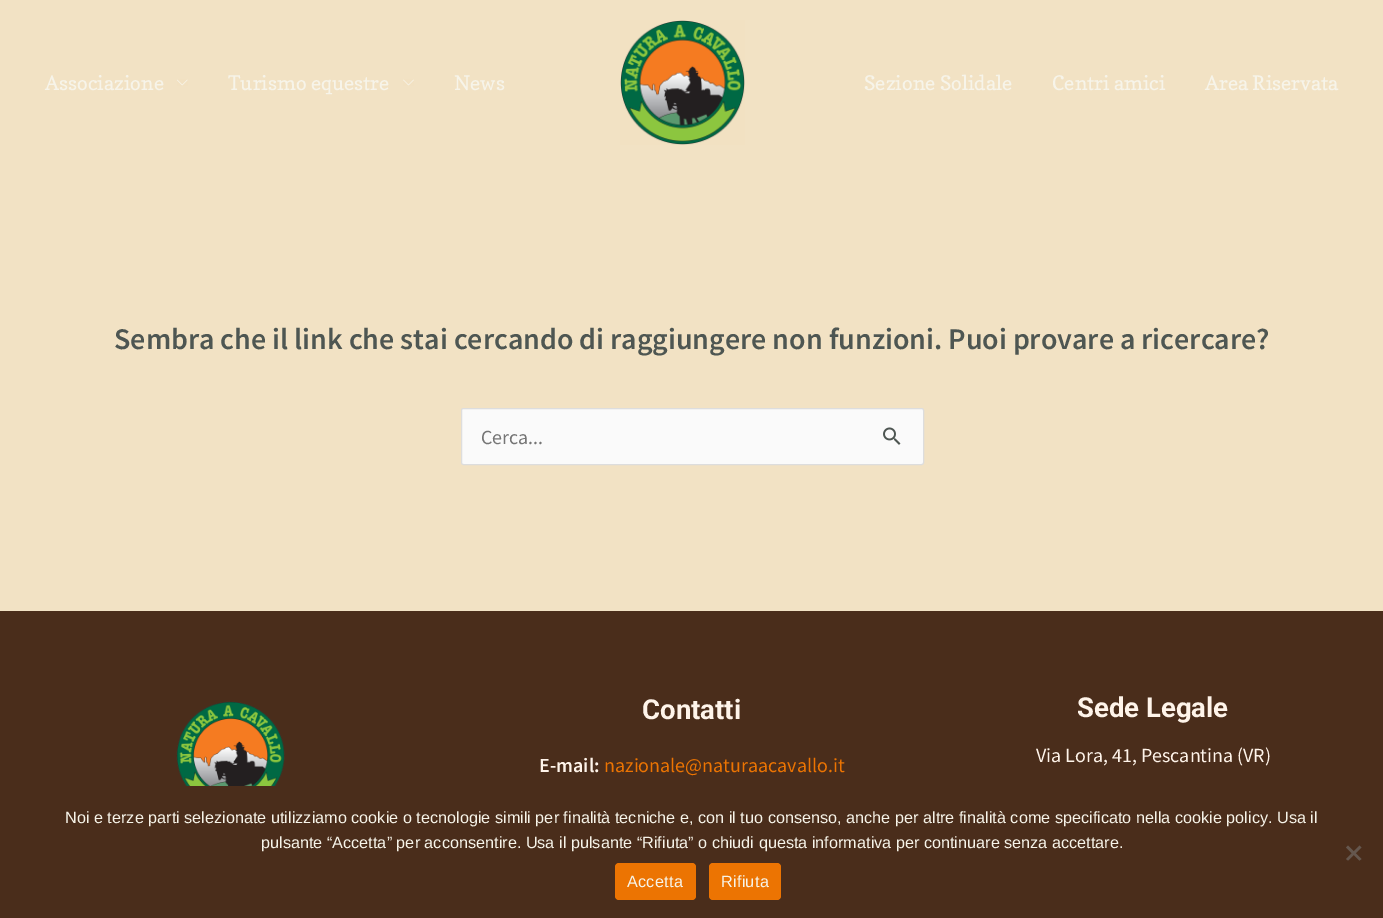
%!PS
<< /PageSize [1383 918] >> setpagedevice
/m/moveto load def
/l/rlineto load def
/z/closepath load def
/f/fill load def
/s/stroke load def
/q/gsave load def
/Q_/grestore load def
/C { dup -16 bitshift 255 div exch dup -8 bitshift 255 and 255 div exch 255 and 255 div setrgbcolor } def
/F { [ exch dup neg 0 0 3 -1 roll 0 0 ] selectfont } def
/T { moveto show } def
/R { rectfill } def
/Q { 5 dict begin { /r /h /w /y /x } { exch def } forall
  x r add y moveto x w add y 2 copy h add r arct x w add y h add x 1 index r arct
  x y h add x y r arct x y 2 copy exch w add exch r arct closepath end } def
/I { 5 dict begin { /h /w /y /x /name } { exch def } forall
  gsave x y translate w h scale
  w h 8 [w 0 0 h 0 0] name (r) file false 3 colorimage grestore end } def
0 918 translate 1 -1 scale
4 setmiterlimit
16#F2E2C4 C
0 0 1383 918 R
/Copse-Regular 20 F
16#F7F4E9 C
(Associazione) 45 90 T
(1.rgb) 177 79 11 7 I
(Turismo equestre) 228 90 T
(2.rgb) 403 79 11 7 I
(News) 454 90 T
(3.rgb) 620 20 125 125 I
(Sezione Solidale) 864 90 T
(Centri amici) 1052 90 T
(Area Riservata) 1205 90 T
/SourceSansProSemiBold-SemiBold 30 F
16#4E5652 C
(Sembra che il link che stai cercando di raggiungere non funzioni. Puoi provare a ricercare?) 114 349 T
16#FAFAFA C
461.5 408.5 462 56 2 Q q f Q_
16#DDDDDD C
s
/SourceSansPro-Regular 20 F
16#757575 C
(Cerca...) 481 444 T
(4.rgb) 883 427 18 18 I
16#4A2D1B C
0 611 1383 307 R
(5.rgb) 176 701 109 85 I
/Roboto-Bold 27.5 F
16#FFF4EA C
(Contatti) 642 719 T
/SourceSansProSemiBold-SemiBold 20 F
(E-mail:) 539 772 T
/SourceSansPro-Regular 20 F
16#EC7402 C
(nazionale@naturaacavallo.it) 604 772 T
/Roboto-Bold 27.5 F
16#FFF4EA C
(Sede Legale) 1077 717 T
/SourceSansPro-Regular 20 F
(Via Lora, 41, Pescantina \(VR\)) 1036 762 T
/LiberationSans-Regular 16.25 F
16#F7F4E9 C
(Noi e terze parti selezionate utilizziamo cookie o tecnologie simili per finalità tecniche e, con il tuo consenso, anche per altre finalità come specificato nella cookie policy. Usa il) 65 823 T
(pulsante “Accetta” per acconsentire. Usa il pulsante “Rifiuta” o chiudi questa informativa per continuare senza accettare.) 261 848 T
16#65574E C
1359.5 845.5 m 2 2 l -13.5 13 l -2 -1.5 l z f
1346 847.5 m 2 -2 l 13.5 13.5 l -2 1.5 l z f
16#EC7402 C
615 863 81 37 4 Q f
16#F7F4E9 C
627 887 m .25 0 (Accetta) ashow
16#EC7402 C
709 863 72 37 4 Q f
16#F7F4E9 C
721 887 m .25 0 (Rifiuta) ashow
showpage
